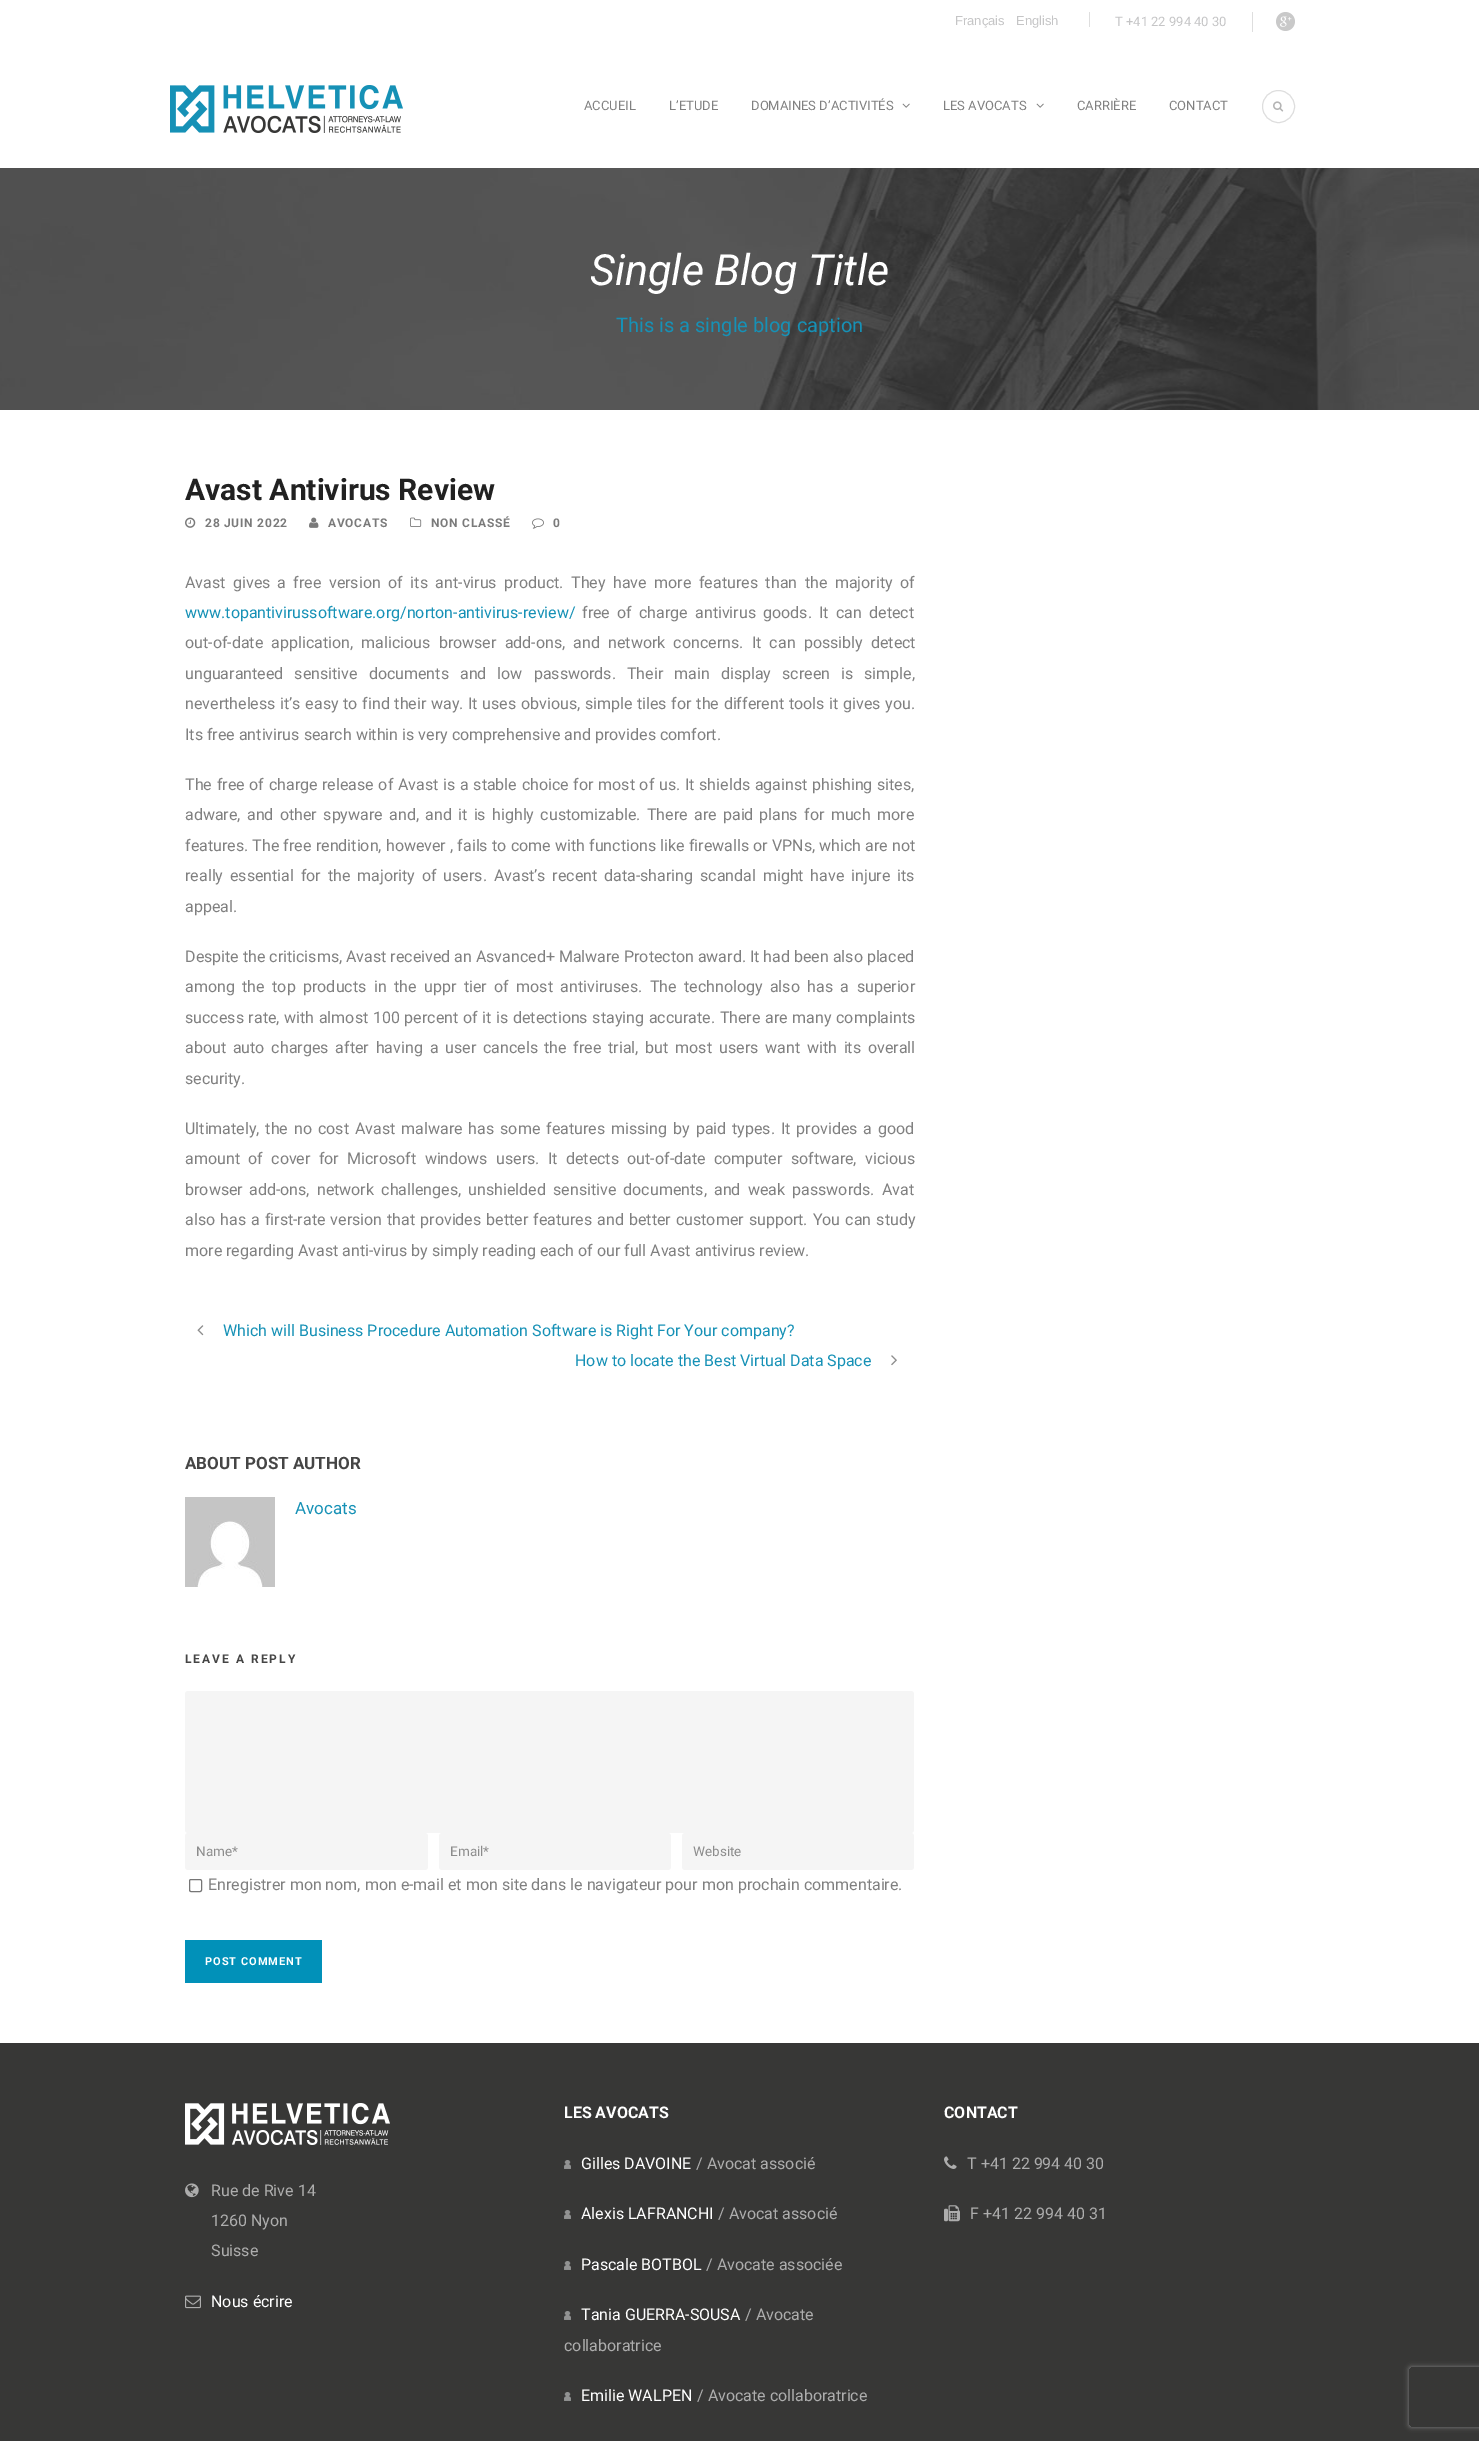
%!PS
<< /PageSize [1479 2441] /PageUsesTransparency true >> setpagedevice
/m/moveto load def
/l/rlineto load def
/c/rcurveto load def
/z/closepath load def
/f/fill load def
/s/stroke load def
/q/gsave load def
/Q_/grestore load def
/C { dup -16 bitshift 255 div exch dup -8 bitshift 255 and 255 div exch 255 and 255 div setrgbcolor } def
/F { [ exch dup neg 0 0 3 -1 roll 0 0 ] selectfont } def
/T { moveto show } def
/R { rectfill } def
/A { dup .setfillconstantalpha .setstrokeconstantalpha } def
/O { newpath 0 360 arc closepath } def
/Q { 5 dict begin { /r /h /w /y /x } { exch def } forall
  x r add y moveto x w add y 2 copy h add r arct x w add y h add x 1 index r arct
  x y h add x y r arct x y 2 copy exch w add exch r arct closepath end } def
/S { 12 dict begin { /a /b /q /h /w /y /x } { exch def } forall gsave /was 0 def
  9 -2 -9 { dup b mul 4 div /e exch def 1 sub .425 mul 2.718 exch exp 1 add a .99 .min exch div /now exch def
    1 1 now sub 1 was sub div sub A /was now def
    w h .min e 2 mul add 0 gt { x e sub y e sub w e 2 mul add h e 2 mul add
      q e add b .6 mul add w h .min 2 div e add .min 0 .max Q fill } if } for grestore end } def
/I { 5 dict begin { /h /w /y /x /name } { exch def } forall
  gsave x y translate w h scale
  w h 8 [w 0 0 h 0 0] name (r) file false 3 colorimage grestore end } def
0 .pushpdf14devicefilter
0 2441 translate 1 -1 scale
4 setmiterlimit
16#FFFFFF C
0 0 1479 2441 R
16#DEDEDE C
1089 12 1 15 R
/LiberationSans-Regular 13 F
16#C5C5C6 C
(Français) 955 25 T
(English) 1016 25 T
16#DEDEDE C
1252 12 1 20 R
/Roboto-Regular 13 F
16#C5C5C6 C
(T +41 22 994 40 30) 1115 26 T
(1.rgb) 1276 12 19 19 I
(2.rgb) 170 85 233 48 I
16#808080 C
(ACCUEIL) 584 110 T
(L’ETUDE) 669 110 T
(DOMAINES D’ACTIVITÉS) 751 110 T
(3.rgb) 902 103 8 5 I
(LES AVOCATS) 943 110 T
(3.rgb) 1036 103 8 5 I
(CARRIÈRE) 1077 110 T
(CONTACT) 1169 110 T
16#DEDEDE C
1278.5 106.5 16 O s
(4.rgb) 1273 101 11 11 I
(5.rgb) 0 168 1479 242 I
/Roboto-Italic 43 F
16#FFFFFF C
(Single Blog Title) 590 285 T
/Roboto-Regular 20 F
16#1691B6 C
(This is a single blog caption) 616 332 T
/Roboto-Bold 30 F
16#212121 C
(Avast Antivirus Review) 185 500 T
(6.rgb) 185 517 11 11 I
/Roboto-Bold 12 F
16#7A7A7A C
205 527 m .75 0 (28 JUIN 2022) ashow
(7.rgb) 309 517 10 11 I
328 527 m .75 0 (AVOCATS) ashow
(8.rgb) 410 517 12 10 I
431 527 m .75 0 (NON CLASSÉ) ashow
(9.rgb) 532 518 12 11 I
553 527 m .75 0 (0) ashow
/Roboto-Regular 16 F
16#808080 C
185 588 m 3.6 0 32 (Avast gives) widthshow
277 588 m 3.6 0 32 (a free version of its ant-virus product. They have more features than the majority of) widthshow
16#1691B6 C
(www.topantivirussoftware.org/norton-antivirus-review/) 185 618 T
16#808080 C
582 618 m 3.25 0 32 (free of charge antivirus goods. It can detect) widthshow
185 648 m 4.25 0 32 (out-of-date application, malicious browser add-ons, and network concerns. It can possibly detect) widthshow
185 679 m 7.1 0 32 (unguaranteed sensitive documents and low passwords. Their main display screen is simple,) widthshow
185 709 m .75 0 32 (nevertheless it’s easy to find their way. It uses obvious, simple tiles for the different tools it gives you.) widthshow
(Its free antivirus search within is very comprehensive and provides comfort.) 185 740 T
185 790 m .75 0 32 (The free of charge) widthshow
322 790 m .75 0 32 (release of Avast is a stable choice for most of us. It shields against phishing sites,) widthshow
185 820 m 2.4 0 32 (adware, and other spyware and, and it is highly customizable. There are paid) widthshow
759 820 m 2.4 0 32 (plans for much more) widthshow
185 851 m .25 0 32 (features. The free rendition, however , fails to come with functions like firewalls or VPNs, which are not) widthshow
185 881 m 2.9 0 32 (really essential for the majority of users. Avast’s recent data-sharing scandal might have injure its) widthshow
(appeal.) 185 912 T
(Despite the criticisms, Avast received an Asvanced+ Malware Protecton award. It had been also placed) 185 962 T
185 992 m 3.5 0 32 (among the top products in the uppr tier of most antiviruses. The technology also has a superior) widthshow
185 1023 m .7 0 32 (success rate, with almost 100 percent of it is detections staying accurate. There are many complaints) widthshow
185 1053 m 2.9 0 32 (about auto charges after having a user cancels) widthshow
544 1053 m 2.9 0 32 (the free trial, but most) widthshow
719 1053 m 2.9 0 32 (users want with its overall) widthshow
(security.) 185 1084 T
185 1134 m 2 0 32 (Ultimately, the no cost Avast malware has some features missing by paid types. It provides a good) widthshow
185 1164 m 4.4 0 32 (amount of cover for Microsoft windows users. It detects out-of-date computer software, vicious) widthshow
(browser) 185 1195 T
249 1195 m 3.25 0 32 (add-ons, network challenges, unshielded sensitive documents, and weak passwords. Avat) widthshow
185 1225 m 1.1 0 32 (also has a first-rate version that provides better features and better customer support. You can study) widthshow
(more regarding Avast anti-virus by simply reading each of our full Avast antivirus review.) 185 1256 T
(10.rgb) 197 1325 7 11 I
16#1691B6 C
(Which will Business Procedure Automation Software is Right For Your company?) 223 1336 T
(How to locate the Best Virtual Data Space) 575 1366 T
(11.rgb) 891 1355 6 11 I
/Roboto-Bold 17 F
16#454545 C
(ABOUT POST AUTHOR) 185 1469 T
(12.rgb) 185 1497 90 90 I
/Roboto-Regular 17 F
16#1691B6 C
(Avocats) 295 1514 T
/Roboto-Bold 12 F
16#454545 C
185 1663 m 2 0 (LEAVE A REPLY) ashow
16#F5F5F5 C
185 1691 729 142 3 Q f
185 1833 243 37 3 Q f
/Roboto-Regular 13.5 F
16#8C8C8C C
(Name*) 196 1856 T
16#F5F5F5 C
439 1833 232 37 3 Q f
16#8C8C8C C
(Email*) 450 1856 T
16#F5F5F5 C
682 1833 232 37 3 Q f
16#8C8C8C C
(Website) 693 1856 T
16#767676 C
189.5 1879.5 12 12 1.5 Q s
/Roboto-Regular 16 F
16#808080 C
(Enregistrer mon nom, mon e-mail et mon site dans le navigateur pour mon prochain commentaire.) 208 1890 T
16#0191B9 C
185 1940 137 43 R
/Roboto-Bold 11 F
16#FFFFFF C
205 1965 m 1 0 (POST COMMENT) ashow
16#373736 C
0 2043 1479 398 R
/Roboto-Bold 16 F
16#FFFFFF C
(LES AVOCATS) 564 2118 T
(13.rgb) 564 2160 7 9 I
/Roboto-Regular 16 F
(Gilles DAVOINE) 581 2169 T
16#ADADAD C
(/ Avocat associé) 696 2169 T
(13.rgb) 564 2210 7 9 I
16#FFFFFF C
(Alexis LAFRANCHI) 581 2219 T
16#ADADAD C
(/ Avocat associé) 718 2219 T
(13.rgb) 564 2261 7 9 I
16#FFFFFF C
(Pascale BOTBOL) 581 2270 T
16#ADADAD C
(/ Avocate associée) 706 2270 T
(13.rgb) 564 2311 7 9 I
16#FFFFFF C
(Tania GUERRA-SOUSA) 581 2320 T
16#ADADAD C
(/ Avocate) 745 2320 T
(collaboratrice) 564 2351 T
(13.rgb) 564 2392 7 9 I
16#FFFFFF C
(Emilie WALPEN) 581 2401 T
16#ADADAD C
(/ Avocate collaboratrice) 697 2401 T
/Roboto-Bold 16 F
16#FFFFFF C
(CONTACT) 944 2118 T
(14.rgb) 944 2156 13 13 I
/Roboto-Regular 16 F
16#ADADAD C
(T +41 22 994 40 30) 967 2169 T
(15.rgb) 944 2205 16 17 I
(F +41 22 994 40 31) 970 2219 T
(16.rgb) 185 2103 205 42 I
(17.rgb) 185 2183 14 15 I
(Rue de Rive 14) 211 2196 T
(1260 Nyon) 211 2226 T
(Suisse) 211 2256 T
(18.rgb) 185 2295 16 14 I
16#FFFFFF C
(Nous écrire) 211 2307 T
q
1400 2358 m 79 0 l 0 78 l -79 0 l z 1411 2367 m 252 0 l 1 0 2 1 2 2 c 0 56 l 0 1 -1 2 -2 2 c -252 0 l -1 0 -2 -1 -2 -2 c 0 -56 l 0 -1 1 -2 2 -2 c z eoclip newpath
16#808080 C
1409 2367 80 60 2 2.5 1 S
Q_
.poppdf14devicefilter showpage
